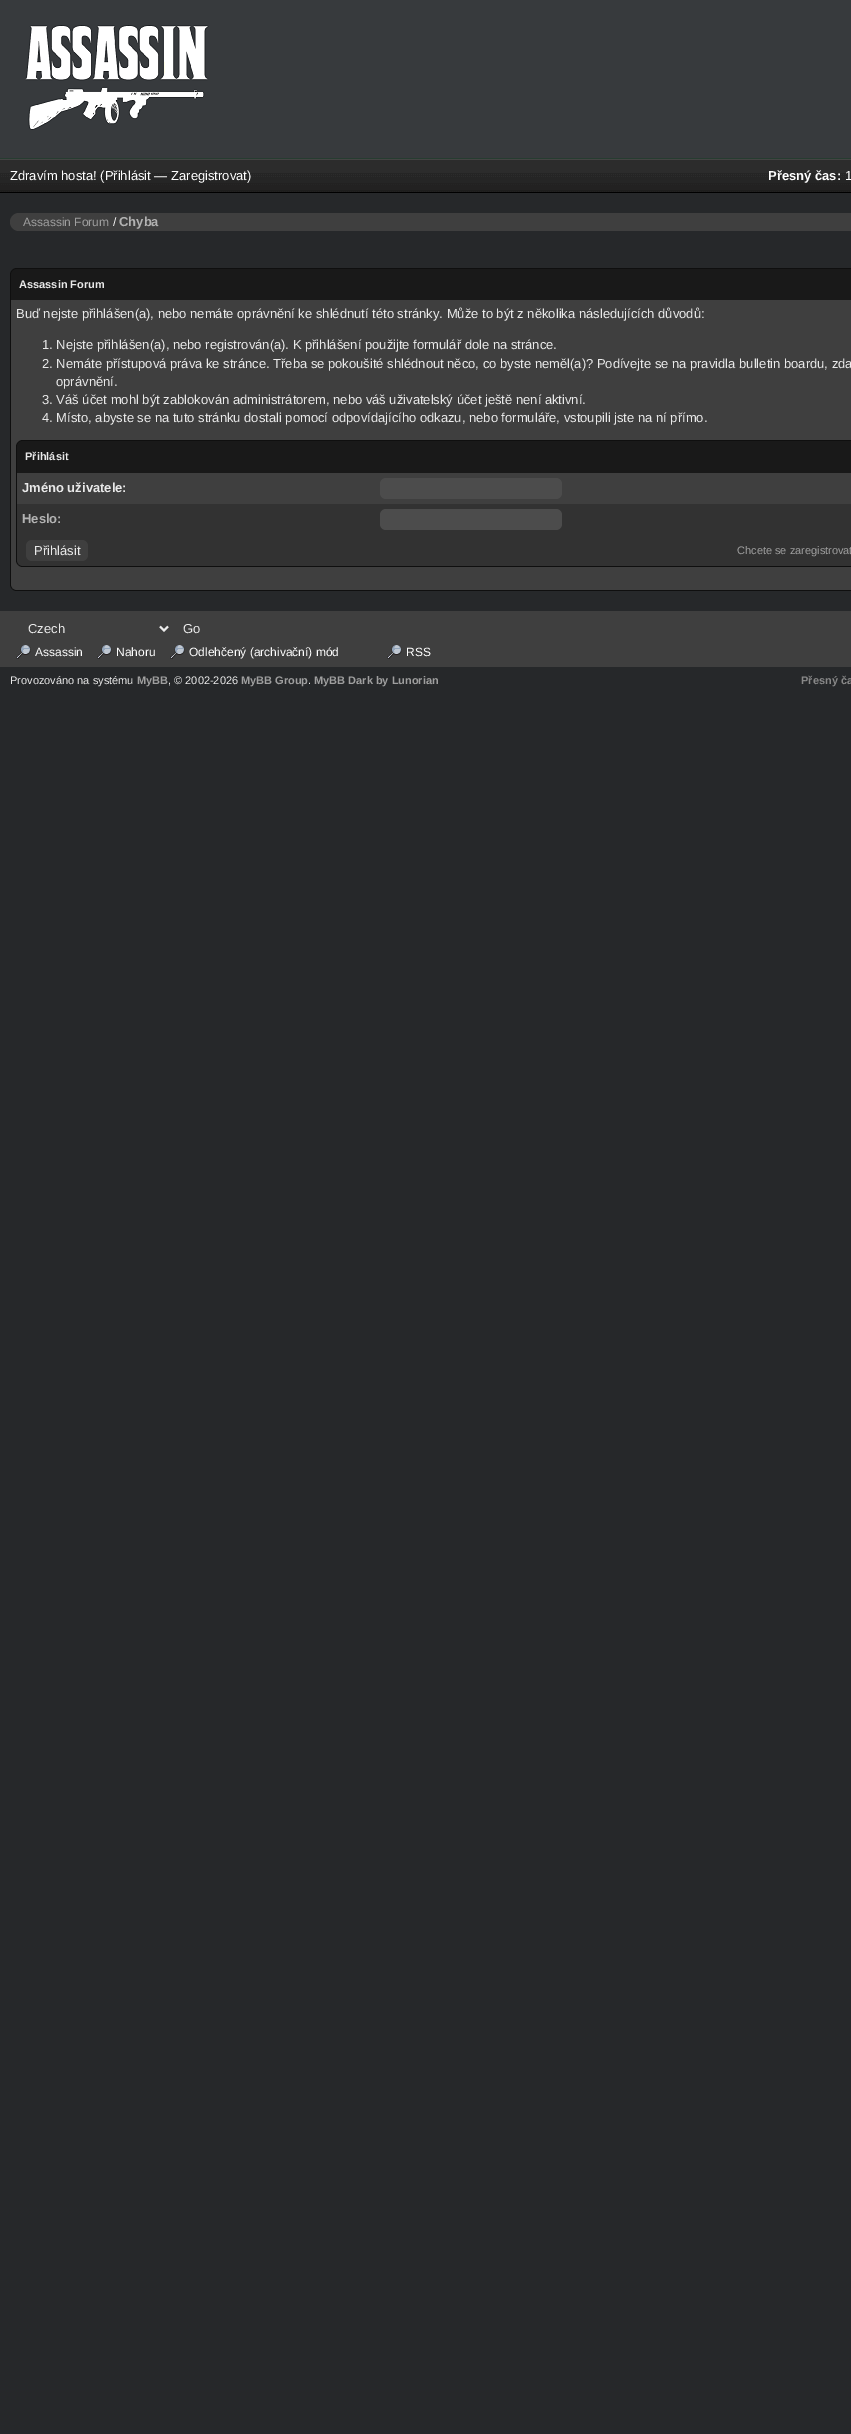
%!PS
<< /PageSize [851 2434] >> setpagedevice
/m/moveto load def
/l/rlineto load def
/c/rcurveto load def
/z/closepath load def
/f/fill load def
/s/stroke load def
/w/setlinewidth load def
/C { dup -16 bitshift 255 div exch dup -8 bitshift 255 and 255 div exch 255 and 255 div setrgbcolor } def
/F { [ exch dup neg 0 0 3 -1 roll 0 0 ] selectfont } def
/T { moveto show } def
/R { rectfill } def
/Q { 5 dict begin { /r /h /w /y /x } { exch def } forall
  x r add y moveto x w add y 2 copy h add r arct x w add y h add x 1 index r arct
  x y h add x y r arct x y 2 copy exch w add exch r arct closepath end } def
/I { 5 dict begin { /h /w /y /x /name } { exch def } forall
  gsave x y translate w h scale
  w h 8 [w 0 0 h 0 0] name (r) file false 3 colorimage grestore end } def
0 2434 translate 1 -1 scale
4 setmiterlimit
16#26282A C
0 0 851 2434 R
16#373A3D C
0 0 851 158 R
16#263C30 C
0 158 851 1 R
(1.rgb) 25 25 184 105 I
(2.rgb) 0 160 851 32 I
16#444444 C
0 159 851 1 R
16#000000 C
0 192 851 1 R
/LiberationSans-Regular 13 F
16#FFFFFF C
(Zdravím hosta! \(Přihlásit — Zaregistrovat\)) 10 180 T
/LiberationSans-Bold 13 F
(Přesný čas:) 768 180 T
/LiberationSans-Regular 13 F
(1) 845 180 T
16#3F3F3F C
10 213 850 18 9 Q f
/LiberationSans-Regular 12 F
16#9F9F9F C
(Assassin Forum) 23 226 T
16#F6F6F6 C
(/) 113 226 T
/LiberationSans-Bold 13 F
16#B2B2B2 C
(Chyba) 119 226 T
16#0F0F0F C
10 268 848 323 7 Q f
16#191919 C
17 269 m 834 0 l 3.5 0 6 2.5 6 6 c 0 25 l -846 0 l 0 -25 l 0 -3.5 2.5 -6 6 -6 c z f
/LiberationSans-Bold 11 F
16#E9E9E9 C
(Assassin Forum) 19 288 T
16#3F3F3F C
11 300 m 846 0 l 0 284 l 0 3.5 -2.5 6 -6 6 c -834 0 l -3.5 0 -6 -2.5 -6 -6 c z f
/LiberationSans-Regular 13 F
16#E9E9E9 C
(Buď nejste přihlášen\(a\), nebo nemáte oprávnění ke shlédnutí této stránky. Může to být z několika následujících důvodů:) 16 318 T
(1. Nejste přihlášen\(a\), nebo registrován\(a\). K přihlášení použijte formulář dole na stránce.) 42 349 T
(2. Nemáte přístupová práva ke stránce. Třeba se pokoušité shlédnout něco, co byste neměl\(a\)? Podívejte se na pravidla bulletin boardu, zda) 42 368 T
(oprávnění.) 56 386 T
(3. Váš účet mohl být zablokován administrátorem, nebo váš uživatelský účet ještě není aktivní.) 42 404 T
(4. Místo, abyste se na tuto stránku dostali pomocí odpovídajícího odkazu, nebo formuláře, vstoupili jste na ní přímo.) 42 422 T
16#0F0F0F C
16 440 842 127 7 Q f
16#191919 C
23 441 m 828 0 l 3.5 0 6 2.5 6 6 c 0 26 l -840 0 l 0 -26 l 0 -3.5 2.5 -6 6 -6 c z f
/LiberationSans-Bold 11 F
16#E9E9E9 C
(Přihlásit) 25 460 T
16#3F3F3F C
17 473 834 31 R
/LiberationSans-Bold 13 F
16#E9E9E9 C
(Jméno uživatele:) 22 492 T
16#4C4C4C C
380 478 182 21 6 Q f
16#323232 C
17 504 834 31 R
16#B2B2B2 C
(Heslo:) 22 523 T
16#4C4C4C C
380 509 182 21 6 Q f
16#323232 C
17 535 m 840 0 l 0 25 l 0 3.5 -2.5 6 -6 6 c -828 0 l -3.5 0 -6 -2.5 -6 -6 c z f
16#3F3F3F C
26 540 62 21 6 Q f
/LiberationSans-Regular 13 F
16#E9E9E9 C
(Přihlásit) 34 555 T
/LiberationSans-Regular 11 F
16#9F9F9F C
(Chcete se zaregistrovat) 737 554 T
16#3F3F3F C
0 611 851 56 R
16#EDEDED C
2 w
160 626.5 m 4 4 l 4 -4 l s
/LiberationSans-Regular 13 F
16#E9E9E9 C
(Czech) 28 633 T
(Go) 183 633 T
(3.rgb) 16 645 15 14 I
/LiberationSans-Regular 12 F
16#FFFFFF C
(Assassin) 35 656 T
(3.rgb) 97 645 15 14 I
(Nahoru) 116 656 T
(3.rgb) 170 645 15 14 I
(Odlehčený \(archivační\) mód) 189 656 T
(3.rgb) 387 645 15 14 I
(RSS) 406 656 T
/LiberationSans-Regular 11 F
16#E9E9E9 C
(Provozováno na systému) 10 684 T
/LiberationSans-Bold 11 F
16#9F9F9F C
(MyBB) 137 684 T
/LiberationSans-Regular 11 F
16#E9E9E9 C
(, © 2002-2026) 168 684 T
/LiberationSans-Bold 11 F
16#9F9F9F C
(MyBB Group) 241 684 T
/LiberationSans-Regular 11 F
16#E9E9E9 C
(.) 308 684 T
/LiberationSans-Bold 11 F
16#9F9F9F C
(MyBB Dark by Lunorian) 314 684 T
16#888888 C
(Přesný ča) 801 684 T
showpage
